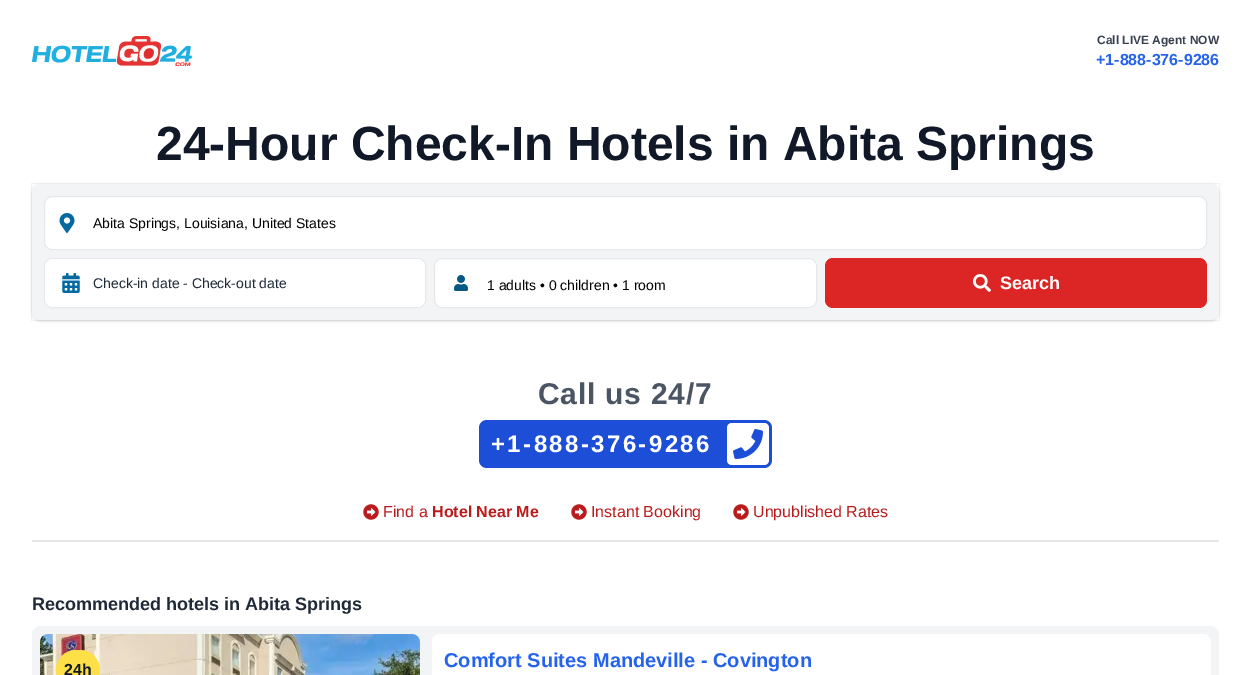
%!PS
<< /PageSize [1251 675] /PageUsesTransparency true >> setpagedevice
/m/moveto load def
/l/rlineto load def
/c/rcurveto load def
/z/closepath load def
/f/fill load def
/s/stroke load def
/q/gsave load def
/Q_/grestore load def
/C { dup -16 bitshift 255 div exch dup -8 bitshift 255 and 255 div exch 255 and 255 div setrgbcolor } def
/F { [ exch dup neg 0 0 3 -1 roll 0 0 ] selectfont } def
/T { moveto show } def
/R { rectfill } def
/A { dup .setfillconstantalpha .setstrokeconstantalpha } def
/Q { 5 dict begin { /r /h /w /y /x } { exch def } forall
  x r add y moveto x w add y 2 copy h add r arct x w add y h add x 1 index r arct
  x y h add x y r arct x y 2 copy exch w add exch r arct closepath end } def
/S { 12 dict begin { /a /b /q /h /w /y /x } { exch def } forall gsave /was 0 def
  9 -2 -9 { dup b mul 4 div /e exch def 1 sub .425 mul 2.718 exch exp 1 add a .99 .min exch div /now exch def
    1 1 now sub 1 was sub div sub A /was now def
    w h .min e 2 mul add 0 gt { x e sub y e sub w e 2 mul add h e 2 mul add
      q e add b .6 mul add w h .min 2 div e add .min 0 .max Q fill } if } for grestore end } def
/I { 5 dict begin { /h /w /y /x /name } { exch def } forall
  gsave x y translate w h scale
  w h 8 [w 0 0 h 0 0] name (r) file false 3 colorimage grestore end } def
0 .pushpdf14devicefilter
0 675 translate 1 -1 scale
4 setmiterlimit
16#FFFFFF C
0 0 1251 675 R
(1.rgb) 32 36 160 30 I
/LiberationSans-Bold 12 F
16#374151 C
(Call LIVE Agent NOW) 1097 44 T
/LiberationSans-Bold 16 F
16#2563EB C
(+1-888-376-9286) 1096 65 T
/LiberationSans-Bold 48 F
16#111827 C
(24-Hour Check-In Hotels in Abita Springs) 156 160 T
16#000000 C
33 186 1185 134 7 1 .1 S
32 185 1187 136 8 1.5 .1 S
0.05 A
31.5 183.5 1188 137 rectstroke
1 A
16#F3F4F6 C
32 184 1187 136 8 Q f
16#FFFFFF C
44.5 196.5 1162 53 7.5 Q q f Q_
16#E5E7EB C
s
(2.rgb) 59 213 16 20 I
/LiberationSans-Regular 14 F
16#000000 C
(Abita Springs, Louisiana, United States) 93 228 T
16#FFFFFF C
44.5 258.5 381 49 7.5 Q q f Q_
16#E5E7EB C
s
16#FFFFFF C
45 259 380 48 8 Q f
(3.rgb) 62 273 18 20 I
16#1F2937 C
(Check-in date - Check-out date) 93 288 T
16#FFFFFF C
434.5 258.5 382 49 7.5 Q q f Q_
16#E5E7EB C
s
(4.rgb) 454 275 14 16 I
16#000000 C
(1 adults • 0 children • 1 room) 487 290 T
16#DC2626 C
825 258 382 50 8 Q f
(5.rgb) 973 274 18 18 I
/LiberationSans-Bold 18 F
16#FFFFFF C
(Search) 1000 289 T
16#E5E7EB C
32 540 1187 2 R
/LiberationSans-Bold 30 F
16#4B5563 C
538 404 m .75 0 (Call us 24/7) ashow
16#1D4ED8 C
479 420 293 48 8 Q f
/LiberationSans-Bold 24 F
16#FFFFFF C
491 452 m 2.4 0 (+1-888-376-9286) ashow
(6.rgb) 727 423 42 42 I
(7.rgb) 363 504 16 16 I
/LiberationSans-Regular 16 F
16#B91C1C C
(Find a) 383 517 T
/LiberationSans-Bold 16 F
(Hotel Near Me) 432 517 T
(7.rgb) 571 504 16 16 I
/LiberationSans-Regular 16 F
(Instant Booking) 591 517 T
(7.rgb) 733 504 16 16 I
(Unpublished Rates) 753 517 T
/LiberationSans-Bold 18 F
16#1F2937 C
(Recommended hotels in Abita Springs) 32 610 T
16#F3F4F6 C
40 626 m 1171 0 l 4 0 8 4 8 8 c 0 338 l 0 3 -4 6 -8 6 c -1171 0 l -4 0 -8 -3 -8 -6 c 0 -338 l 0 -4 4 -8 8 -8 c z f
(8.rgb) 40 634 380 41 I
16#FDE047 C
56 650 44 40 20 Q f
/LiberationSans-Bold 16 F
16#111827 C
(24h) 64 675 T
16#FFFFFF C
432 634 779 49 8 Q f
/LiberationSans-Bold 20 F
16#2563EB C
(Comfort Suites Mandeville - Covington) 444 667 T
.poppdf14devicefilter showpage
